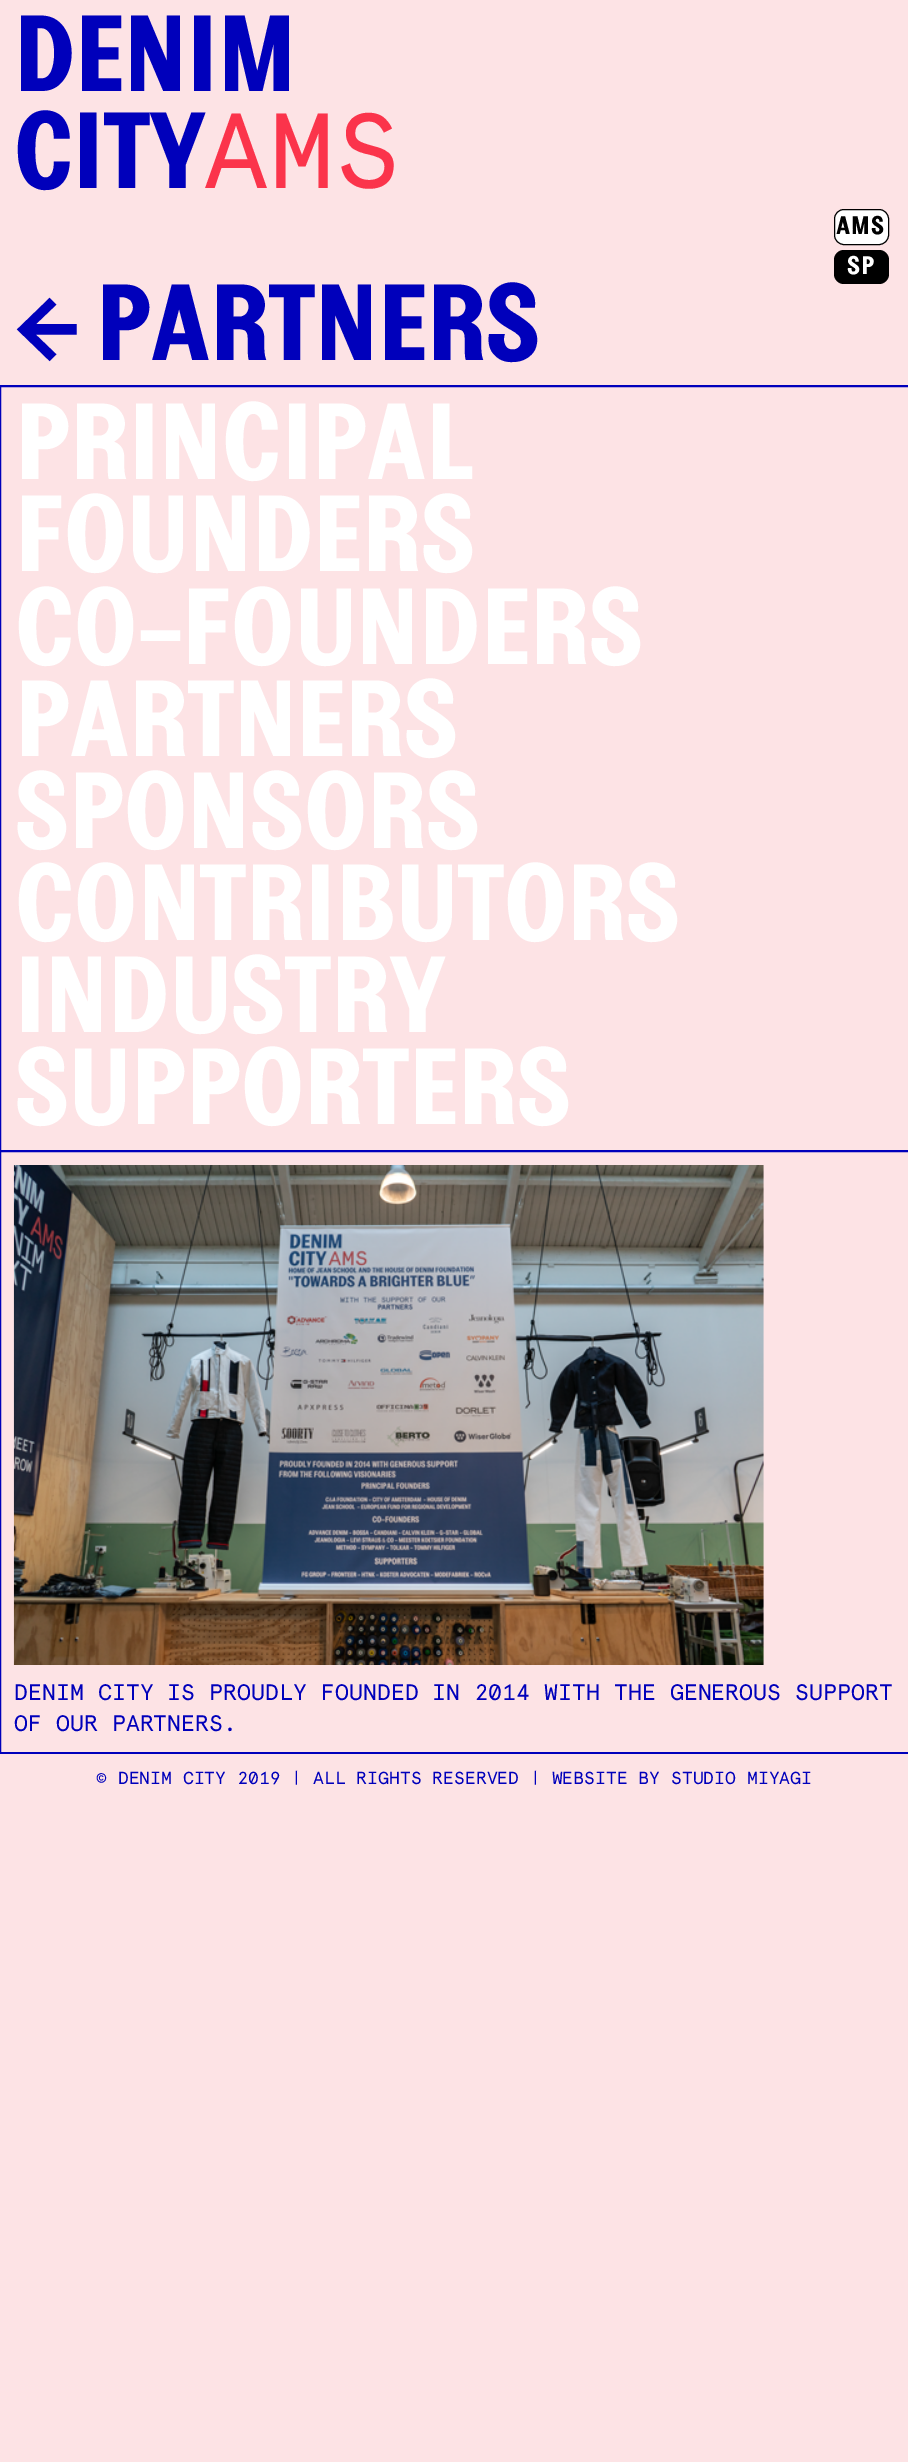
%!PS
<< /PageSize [908 2462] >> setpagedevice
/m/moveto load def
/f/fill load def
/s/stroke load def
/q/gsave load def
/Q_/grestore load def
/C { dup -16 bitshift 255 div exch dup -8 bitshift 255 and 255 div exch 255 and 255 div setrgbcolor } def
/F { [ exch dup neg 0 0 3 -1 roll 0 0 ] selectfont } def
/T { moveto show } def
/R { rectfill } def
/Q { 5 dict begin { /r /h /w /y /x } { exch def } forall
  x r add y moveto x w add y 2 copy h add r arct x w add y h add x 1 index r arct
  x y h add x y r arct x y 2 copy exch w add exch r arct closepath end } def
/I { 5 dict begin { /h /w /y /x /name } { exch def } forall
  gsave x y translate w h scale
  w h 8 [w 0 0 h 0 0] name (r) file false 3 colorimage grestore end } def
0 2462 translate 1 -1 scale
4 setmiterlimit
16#FDE3E5 C
0 0 908 2462 R
16#0000BB C
0 385 908 1 R
/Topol-Bold 106.5 F
13 91 m -2.1 0 (DENIM) ashow
13 188 m -2.1 0 (CITY) ashow
/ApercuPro-Regular 106.5 F
16#FB344B C
(AMS) 203 188 T
16#FFFFFF C
834.5 209.5 54 35 9.5 Q q f Q_
16#000000 C
s
/Topol-Bold 25 F
836 234 m 1 0 (AMS) ashow
834 250 55 34 10 Q f
16#FFFFFF C
847 274 m 1 0 (SP) ashow
/Topol-Bold 106.5 F
16#0000BB C
13 360 m -2.1 0 (← PARTNERS) ashow
.5 386.5 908 764 rectstroke
16#FFFFFF C
14 479 m -2.1 0 (PRINCIPAL) ashow
14 571 m -2.1 0 (FOUNDERS) ashow
14 664 m -2.1 0 (CO-FOUNDERS) ashow
14 756 m -2.1 0 (PARTNERS) ashow
14 848 m -2.1 0 (SPONSORS) ashow
14 940 m -2.1 0 (CONTRIBUTORS) ashow
14 1032 m -2.1 0 (INDUSTRY) ashow
14 1124 m -2.1 0 (SUPPORTERS) ashow
16#0000BB C
.5 1151.5 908 601 rectstroke
(1.rgb) 13 1165 751 500 I
/ApercuPro-Regular 22.5 F
(DENIM CITY IS PROUDLY FOUNDED IN 2014 WITH THE GENEROUS SUPPORT) 14 1700 T
(OF OUR PARTNERS.) 14 1731 T
0 1753 908 1 R
/ApercuPro-Regular 17.5 F
(© DENIM CITY 2019 | ALL RIGHTS RESERVED | WEBSITE BY STUDIO MIYAGI) 96 1784 T
showpage
